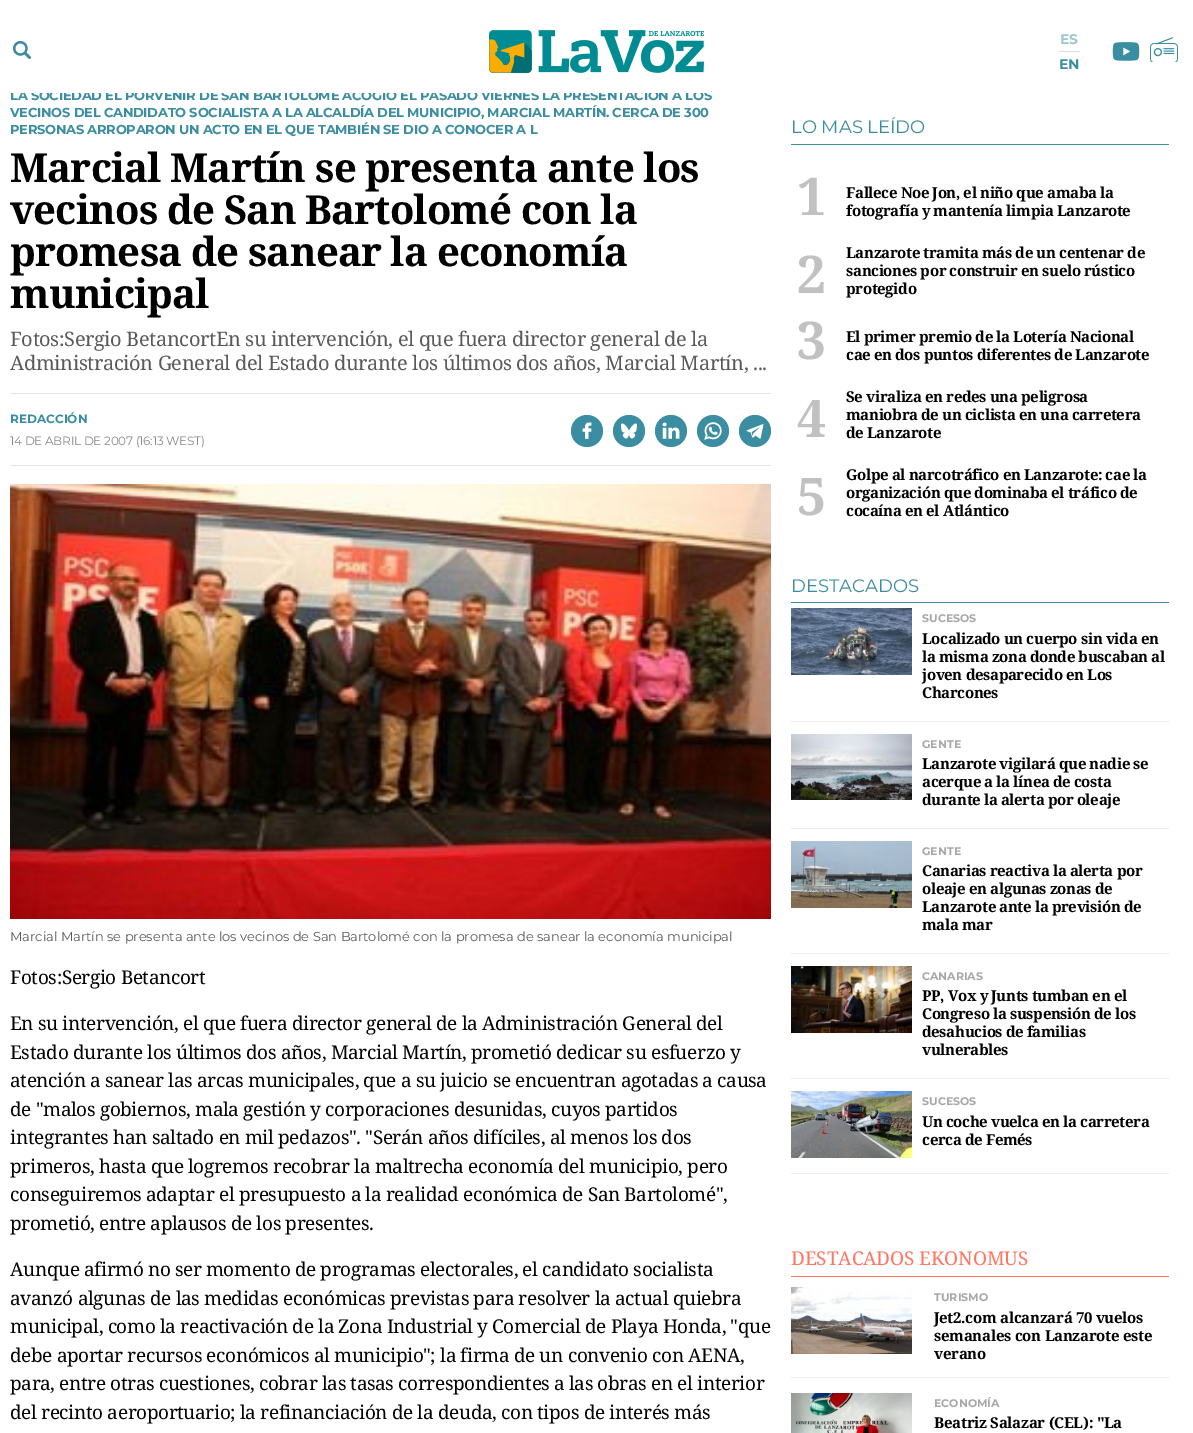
%!PS
<< /PageSize [1193 1433] >> setpagedevice
/m/moveto load def
/f/fill load def
/C { dup -16 bitshift 255 div exch dup -8 bitshift 255 and 255 div exch 255 and 255 div setrgbcolor } def
/F { [ exch dup neg 0 0 3 -1 roll 0 0 ] selectfont } def
/T { moveto show } def
/R { rectfill } def
/O { newpath 0 360 arc closepath } def
/I { 5 dict begin { /h /w /y /x /name } { exch def } forall
  gsave x y translate w h scale
  w h 8 [w 0 0 h 0 0] name (r) file false 3 colorimage grestore end } def
0 1433 translate 1 -1 scale
4 setmiterlimit
16#FFFFFF C
0 0 1193 1433 R
/Montserrat-Bold 13 F
16#3B8EA1 C
10 100 m -.25 0 (LA SOCIEDAD EL PORVENIR DE SAN BARTOLOMÉ ACOGIÓ EL PASADO VIERNES LA PRESENTACIÓN A LOS) ashow
16#FFFFFF C
11 88 700 5 R
(1.rgb) 13 41 18 18 I
(2.rgb) 489 30 215 43 I
/Montserrat-Bold 14 F
16#9DC7D0 C
(ES) 1060 44 T
16#DCDCDC C
1059 51 21 1 R
16#3B8EA1 C
(EN) 1059 69 T
(3.rgb) 1112 42 28 19 I
(4.rgb) 1150 37 28 25 I
/Montserrat-Bold 13 F
10 117 m -.25 0 (VECINOS DEL CANDIDATO SOCIALISTA A LA ALCALDÍA DEL MUNICIPIO, MARCIAL MARTÍN. CERCA DE 300) ashow
10 134 m -.25 0 (PERSONAS ARROPARON UN ACTO EN EL QUE TAMBIÉN SE DIO A CONOCER A L) ashow
/NotoSerif-Bold 40 F
16#000000 C
10 182 m -.8 0 (Marcial Martín se presenta ante los) ashow
10 224 m -.8 0 (vecinos de San Bartolomé con la) ashow
10 266 m -.8 0 (promesa de sanear la economía) ashow
10 308 m -.8 0 (municipal) ashow
/NotoSerif-Regular 20 F
16#5A5A5A C
10 346 m -.4 0 (Fotos:Sergio BetancortEn su intervención, el que fuera director general de la) ashow
10 370 m -.4 0 (Administración General del Estado durante los últimos dos años, Marcial Martín, ...) ashow
16#E5E5E5 C
10 393 761 1 R
10 465 761 1 R
/Montserrat-Bold 12 F
16#3B8EA1 C
(REDACCIÓN) 10 423 T
587 431 16 O f
(5.rgb) 582 422 10 17 I
629 431 16 O f
(6.rgb) 621 423 16 16 I
671 431 16 O f
(7.rgb) 662 422 18 17 I
713 431 16 O f
(8.rgb) 704 422 18 18 I
755 431 16 O f
(9.rgb) 746 424 18 15 I
/Montserrat-Regular 12 F
16#888888 C
10 445 m -.25 0 (14 DE ABRIL DE 2007 \(16:13 WEST\)) ashow
(10.rgb) 10 484 761 435 I
/Montserrat-Regular 13 F
16#5A5A5A C
(Marcial Martín se presenta ante los vecinos de San Bartolomé con la promesa de sanear la economía municipal) 10 941 T
/NotoSerif-Regular 19 F
16#000000 C
10 984 m -.38 0 (Fotos:Sergio Betancort) ashow
10 1030 m -.38 0 (En su intervención, el que fuera director general de la Administración General del) ashow
10 1059 m -.38 0 (Estado durante los últimos dos años, Marcial Martín, prometió dedicar su esfuerzo y) ashow
10 1087 m -.38 0 (atención a sanear las arcas municipales, que a su juicio se encuentran agotadas a causa) ashow
10 1116 m -.38 0 (de "malos gobiernos, mala gestión y corporaciones desunidas, cuyos partidos) ashow
10 1144 m -.38 0 (integrantes han saltado en mil pedazos". "Serán años difíciles, al menos los dos) ashow
10 1173 m -.38 0 (primeros, hasta que logremos recobrar la maltrecha economía del municipio, pero) ashow
10 1201 m -.38 0 (conseguiremos adaptar el presupuesto a la realidad económica de San Bartolomé",) ashow
10 1230 m -.38 0 (prometió, entre aplausos de los presentes.) ashow
10 1276 m -.38 0 (Aunque afirmó no ser momento de programas electorales, el candidato socialista) ashow
10 1305 m -.38 0 (avanzó algunas de las medidas económicas previstas para resolver la actual quiebra) ashow
10 1333 m -.38 0 (municipal, como la reactivación de la Zona Industrial y Comercial de Playa Honda, "que) ashow
10 1362 m -.38 0 (debe aportar recursos económicos al municipio"; la firma de un convenio con AENA,) ashow
10 1390 m -.38 0 (para, entre otras cuestiones, cobrar las tasas correspondientes a las obras en el interior) ashow
10 1419 m -.38 0 (del recinto aeroportuario; la refinanciación de la deuda, con tipos de interés más) ashow
16#3B8EA1 C
791 144 378 1 R
/Montserrat-Regular 18 F
(LO MAS LEÍDO) 791 133 T
/NotoSerif-Bold 52 F
16#C1C1C1 C
797 215 m -1 0 (1) ashow
/NotoSerif-Bold 15 F
16#000000 C
846 198 m -.4 0 (Fallece Noe Jon, el niño que amaba la) ashow
846 216 m -.4 0 (fotografía y mantenía limpia Lanzarote) ashow
/NotoSerif-Bold 52 F
16#C1C1C1 C
797 293 m -1 0 (2) ashow
/NotoSerif-Bold 15 F
16#000000 C
846 258 m -.4 0 (Lanzarote tramita más de un centenar de) ashow
846 276 m -.4 0 (sanciones por construir en suelo rústico) ashow
846 294 m -.4 0 (protegido) ashow
/NotoSerif-Bold 52 F
16#C1C1C1 C
797 359 m -1 0 (3) ashow
/NotoSerif-Bold 15 F
16#000000 C
846 342 m -.4 0 (El primer premio de la Lotería Nacional) ashow
846 360 m -.4 0 (cae en dos puntos diferentes de Lanzarote) ashow
/NotoSerif-Bold 52 F
16#C1C1C1 C
797 437 m -1 0 (4) ashow
/NotoSerif-Bold 15 F
16#000000 C
846 402 m -.4 0 (Se viraliza en redes una peligrosa) ashow
846 420 m -.4 0 (maniobra de un ciclista en una carretera) ashow
846 438 m -.4 0 (de Lanzarote) ashow
/NotoSerif-Bold 52 F
16#C1C1C1 C
797 515 m -1 0 (5) ashow
/NotoSerif-Bold 15 F
16#000000 C
846 480 m -.4 0 (Golpe al narcotráfico en Lanzarote: cae la) ashow
846 498 m -.4 0 (organización que dominaba el tráfico de) ashow
846 516 m -.4 0 (cocaína en el Atlántico) ashow
16#3B8EA1 C
791 602 378 1 R
/Montserrat-Regular 18 F
(DESTACADOS) 791 592 T
16#EAEDEF C
791 721 378 1 R
(11.rgb) 791 608 121 67 I
/Montserrat-Bold 11 F
16#A7A7A7 C
(SUCESOS) 922 622 T
/NotoSerif-Bold 15 F
16#000000 C
922 644 m -.4 0 (Localizado un cuerpo sin vida en) ashow
922 662 m -.4 0 (la misma zona donde buscaban al) ashow
922 680 m -.4 0 (joven desaparecido en Los) ashow
922 698 m -.4 0 (Charcones) ashow
16#EAEDEF C
791 828 378 1 R
(12.rgb) 791 734 121 66 I
/Montserrat-Bold 11 F
16#A7A7A7 C
(GENTE) 922 748 T
/NotoSerif-Bold 15 F
16#000000 C
922 769 m -.4 0 (Lanzarote vigilará que nadie se) ashow
922 787 m -.4 0 (acerque a la línea de costa) ashow
922 805 m -.4 0 (durante la alerta por oleaje) ashow
16#EAEDEF C
791 953 378 1 R
(13.rgb) 791 841 121 67 I
/Montserrat-Bold 11 F
16#A7A7A7 C
(GENTE) 922 855 T
/NotoSerif-Bold 15 F
16#000000 C
922 876 m -.4 0 (Canarias reactiva la alerta por) ashow
922 894 m -.4 0 (oleaje en algunas zonas de) ashow
922 912 m -.4 0 (Lanzarote ante la previsión de) ashow
922 930 m -.4 0 (mala mar) ashow
16#EAEDEF C
791 1078 378 1 R
(14.rgb) 791 966 121 67 I
/Montserrat-Bold 11 F
16#A7A7A7 C
(CANARIAS) 922 980 T
/NotoSerif-Bold 15 F
16#000000 C
922 1001 m -.4 0 (PP, Vox y Junts tumban en el) ashow
922 1019 m -.4 0 (Congreso la suspensión de los) ashow
922 1037 m -.4 0 (desahucios de familias) ashow
922 1055 m -.4 0 (vulnerables) ashow
16#EAEDEF C
791 1173 378 1 R
(15.rgb) 791 1091 121 67 I
/Montserrat-Bold 11 F
16#A7A7A7 C
(SUCESOS) 922 1105 T
/NotoSerif-Bold 15 F
16#000000 C
922 1127 m -.4 0 (Un coche vuelca en la carretera) ashow
922 1145 m -.4 0 (cerca de Femés) ashow
16#FF7661 C
791 1276 378 1 R
/NotoSerif-Regular 19 F
791 1265 m -.1 0 (DESTACADOS EKONOMUS) ashow
16#EAEDEF C
791 1377 378 1 R
(16.rgb) 791 1287 121 67 I
/Montserrat-Bold 11 F
16#A7A7A7 C
(TURISMO) 934 1301 T
/NotoSerif-Bold 15 F
16#000000 C
934 1323 m -.3 0 (Jet2.com alcanzará 70 vuelos) ashow
934 1341 m -.3 0 (semanales con Lanzarote este) ashow
934 1359 m -.3 0 (verano) ashow
(17.rgb) 791 1393 121 40 I
/Montserrat-Bold 11 F
16#A7A7A7 C
(ECONOMÍA) 934 1407 T
/NotoSerif-Bold 15 F
16#000000 C
934 1428 m -.3 0 (Beatriz Salazar \(CEL\): "La) ashow
showpage
